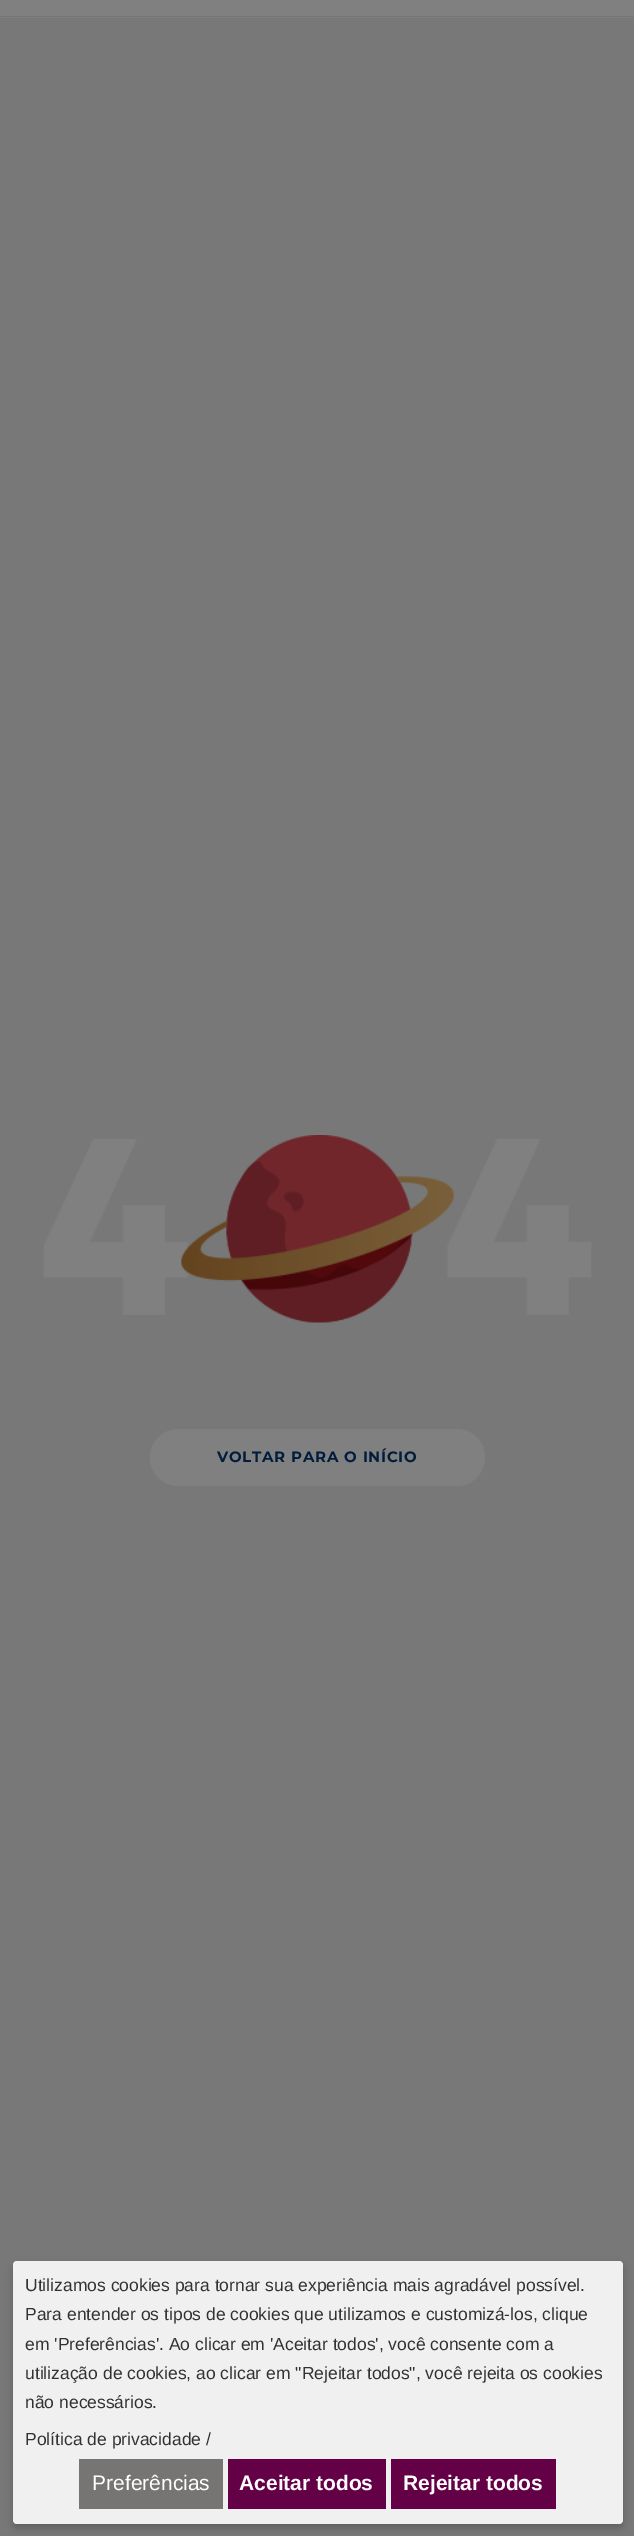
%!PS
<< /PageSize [634 2536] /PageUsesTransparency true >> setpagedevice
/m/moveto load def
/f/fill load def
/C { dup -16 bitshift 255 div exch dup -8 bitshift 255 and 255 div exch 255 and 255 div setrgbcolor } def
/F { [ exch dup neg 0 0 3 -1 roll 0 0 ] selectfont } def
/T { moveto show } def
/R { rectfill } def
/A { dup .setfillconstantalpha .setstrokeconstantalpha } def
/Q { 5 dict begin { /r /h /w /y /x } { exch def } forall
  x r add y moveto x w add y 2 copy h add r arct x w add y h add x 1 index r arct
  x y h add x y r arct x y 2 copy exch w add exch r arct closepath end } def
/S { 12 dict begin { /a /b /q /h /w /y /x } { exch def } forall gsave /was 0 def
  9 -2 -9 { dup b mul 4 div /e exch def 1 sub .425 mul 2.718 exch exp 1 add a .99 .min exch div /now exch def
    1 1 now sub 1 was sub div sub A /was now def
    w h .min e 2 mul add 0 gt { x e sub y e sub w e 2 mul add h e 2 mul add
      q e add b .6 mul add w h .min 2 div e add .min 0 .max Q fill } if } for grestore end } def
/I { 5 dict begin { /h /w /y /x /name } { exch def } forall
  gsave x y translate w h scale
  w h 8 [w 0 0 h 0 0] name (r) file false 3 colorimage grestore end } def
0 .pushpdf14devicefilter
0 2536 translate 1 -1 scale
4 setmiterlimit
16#787878 C
0 0 634 2536 R
16#808080 C
0 0 634 18 R
16#767676 C
0 16 634 1 R
(1.rgb) 43 1135 549 188 I
16#808080 C
150 1429 335 57 28.5 Q f
/Montserrat-Bold 15 F
16#001D3B C
217 1462 m .75 0 (VOLTAR PARA O INÍCIO) ashow
16#000000 C
13 2265 610 263 4 4 .2 S
16#F0F0F0 C
13 2261 610 263 4 Q f
/LiberationSans-Regular 17.5 F
16#323232 C
(Utilizamos cookies para tornar sua experiência mais agradável possível.) 25 2291 T
(Para entender os tipos de cookies que utilizamos e customizá-los, clique) 25 2320 T
(em 'Preferências'. Ao clicar em 'Aceitar todos', você consente com a) 25 2350 T
(utilização de cookies, ao clicar em "Rejeitar todos", você rejeita os cookies) 25 2379 T
(não necessários.) 25 2408 T
(Política de privacidade /) 25 2445 T
16#777474 C
79 2459 144 50 R
/LiberationSans-Regular 21 F
16#FFFFFF C
(Preferências) 92 2490 T
16#640046 C
228 2459 158 50 R
/LiberationSans-Bold 21 F
16#FFFFFF C
(Aceitar todos) 239 2490 T
16#640046 C
391 2459 165 50 R
16#FFFFFF C
(Rejeitar todos) 403 2490 T
.poppdf14devicefilter showpage
